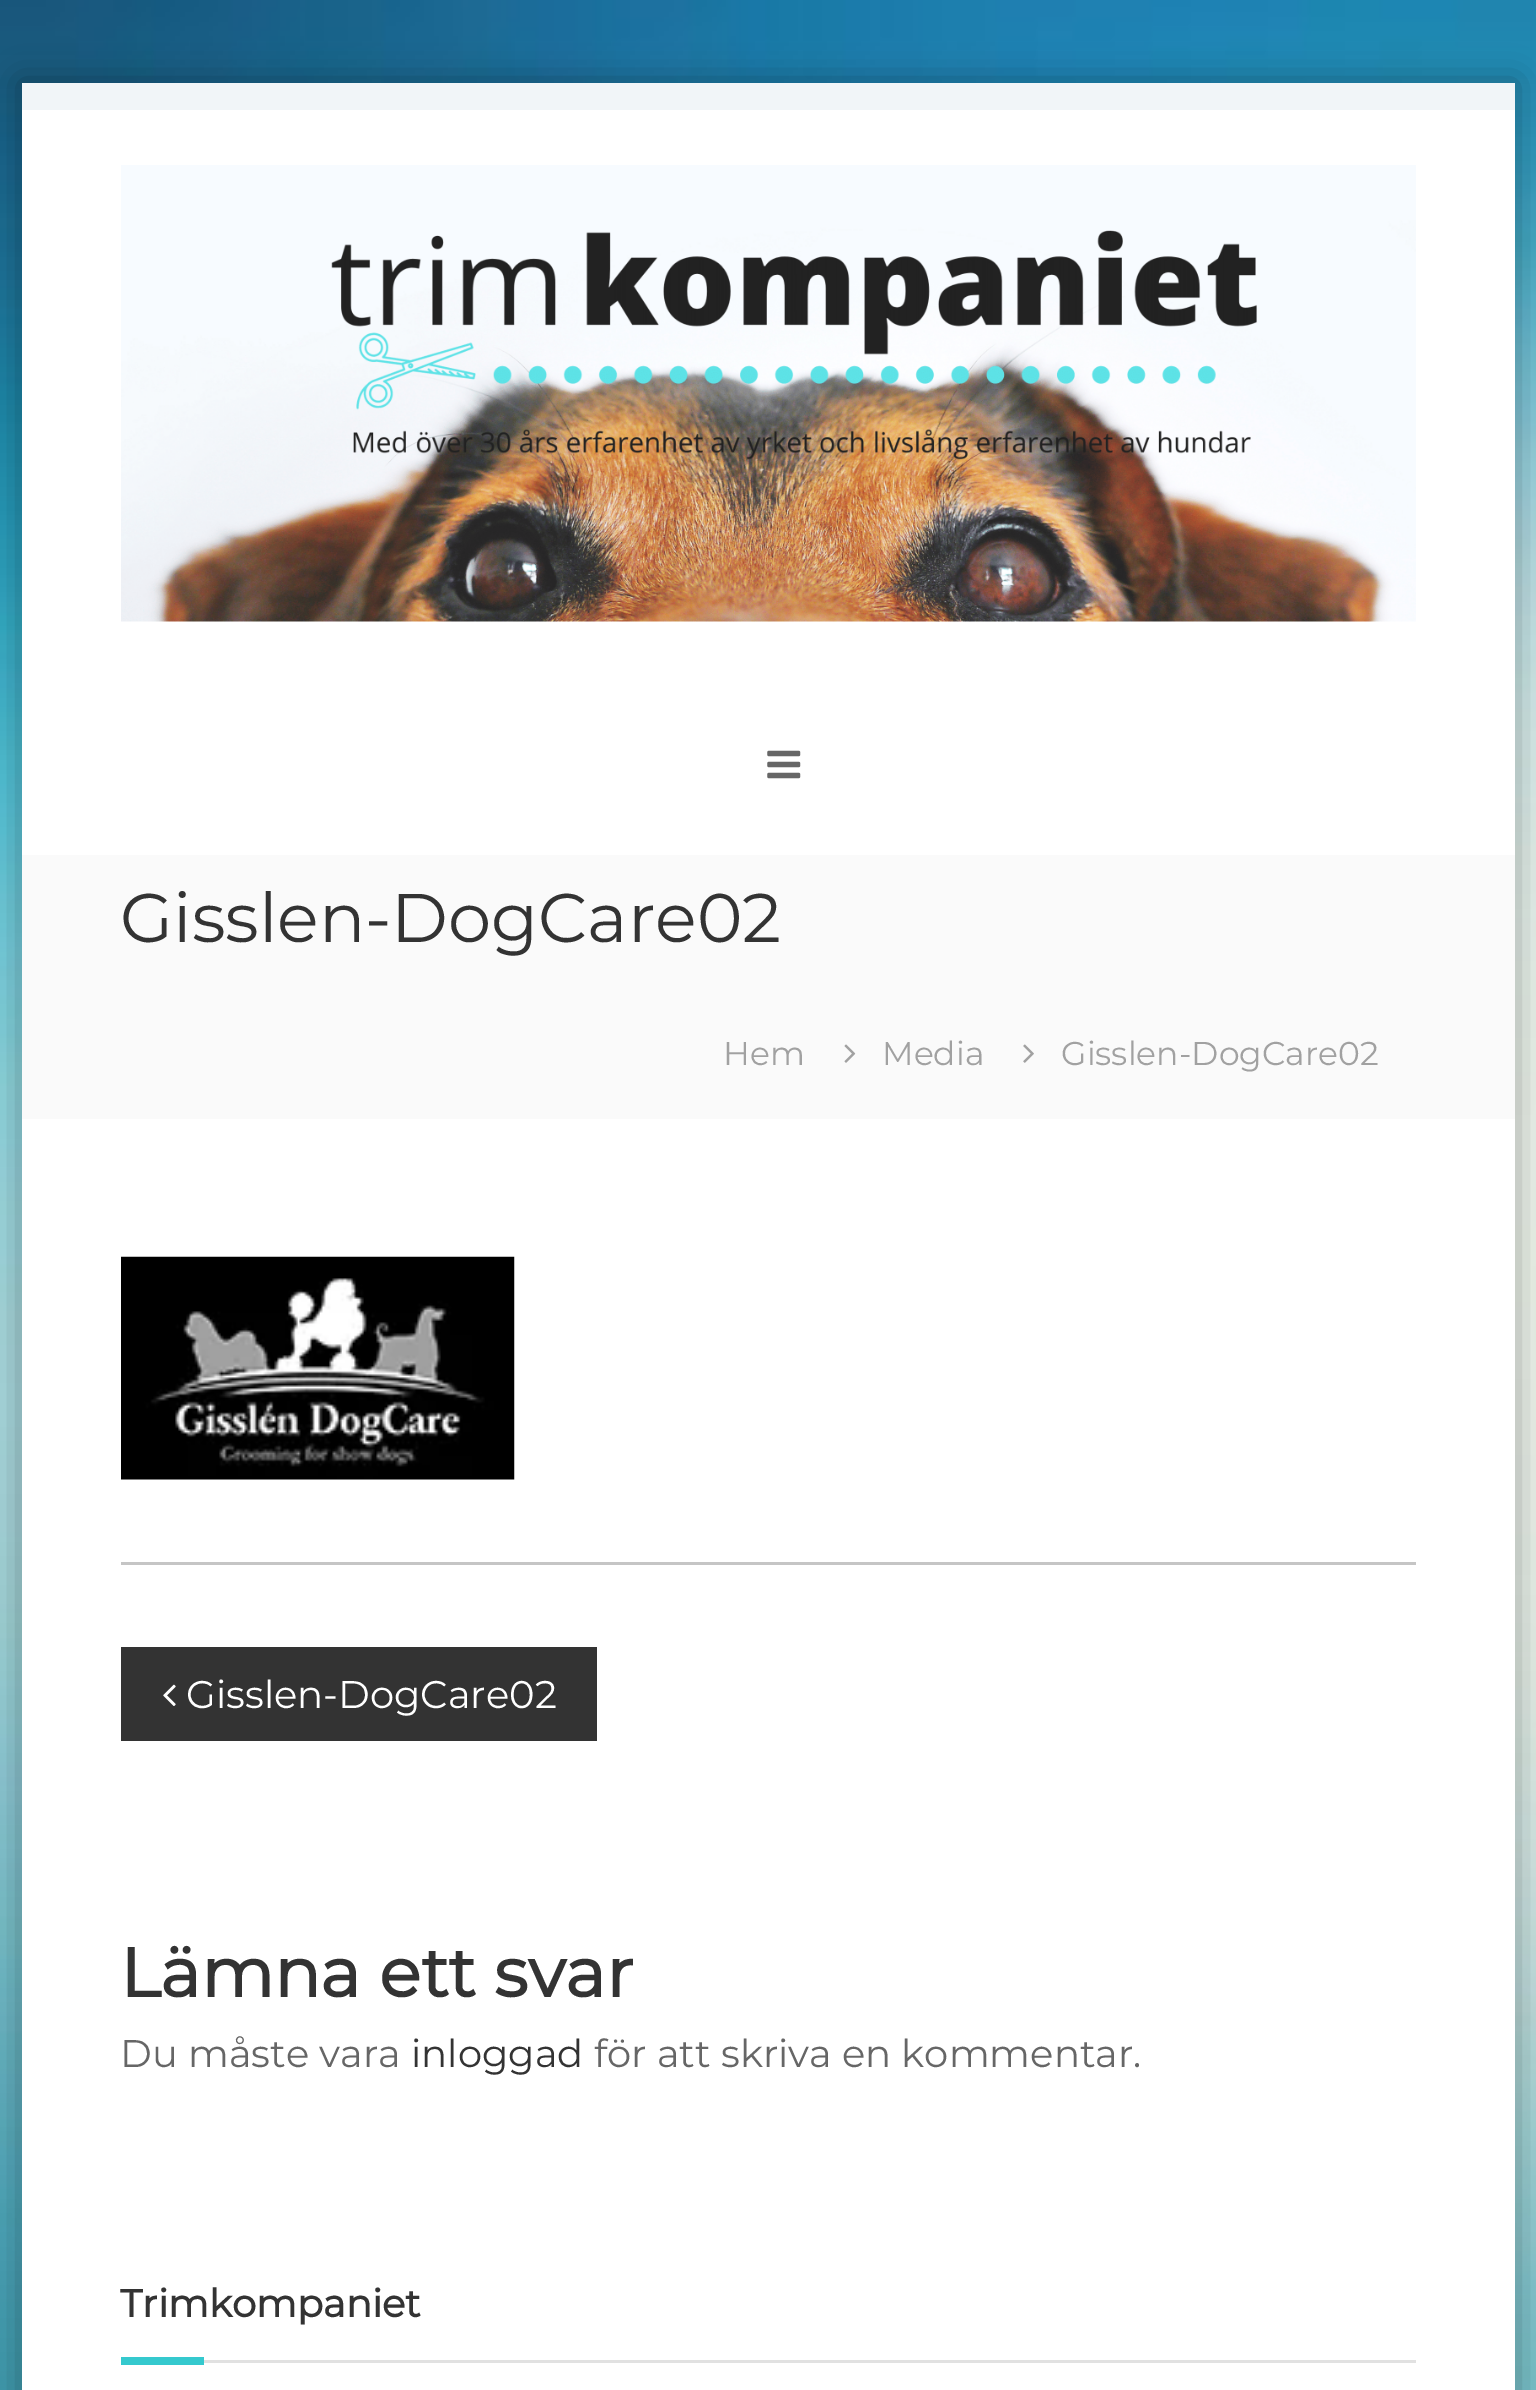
%!PS
<< /PageSize [1536 2390] /PageUsesTransparency true >> setpagedevice
/C { dup -16 bitshift 255 div exch dup -8 bitshift 255 and 255 div exch 255 and 255 div setrgbcolor } def
/F { [ exch dup neg 0 0 3 -1 roll 0 0 ] selectfont } def
/T { moveto show } def
/R { rectfill } def
/A { dup .setfillconstantalpha .setstrokeconstantalpha } def
/Q { 5 dict begin { /r /h /w /y /x } { exch def } forall
  x r add y moveto x w add y 2 copy h add r arct x w add y h add x 1 index r arct
  x y h add x y r arct x y 2 copy exch w add exch r arct closepath end } def
/S { 12 dict begin { /a /b /q /h /w /y /x } { exch def } forall gsave /was 0 def
  9 -2 -9 { dup b mul 4 div /e exch def 1 sub .425 mul 2.718 exch exp 1 add a .99 .min exch div /now exch def
    1 1 now sub 1 was sub div sub A /was now def
    w h .min e 2 mul add 0 gt { x e sub y e sub w e 2 mul add h e 2 mul add
      q e add b .6 mul add w h .min 2 div e add .min 0 .max Q fill } if } for grestore end } def
/I { 5 dict begin { /h /w /y /x /name } { exch def } forall
  gsave x y translate w h scale
  w h 8 [w 0 0 h 0 0] name (r) file false 3 colorimage grestore end } def
0 .pushpdf14devicefilter
0 2390 translate 1 -1 scale
4 setmiterlimit
16#FFFFFF C
0 0 1536 2390 R
(1.rgb) 0 0 1536 2390 I
16#000000 C
19 80 1499 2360 0 16.5 .3 S
16#FFFFFF C
22 110 1493 2280 R
16#F1F5F8 C
22 83 1493 27 R
(2.rgb) 121 165 1295 457 I
(3.rgb) 767 750 34 29 I
16#FAFAFA C
22 855 1493 264 R
/Montserrat-Regular 68.75 F
16#333333 C
(Gisslen-DogCare02) 120 942 T
/Montserrat-Regular 33 F
16#A1A1A1 C
(Hem) 723 1065 T
(4.rgb) 844 1044 12 19 I
(Media) 882 1065 T
(5.rgb) 1023 1044 11 19 I
(Gisslen-DogCare02) 1061 1065 T
16#C5C5C5 C
121 1562 1295 3 R
(6.rgb) 121 1256 394 224 I
16#333333 C
121 1647 476 94 R
(7.rgb) 163 1684 13 22 I
/Montserrat-Regular 38.5 F
16#FFFFFF C
(Gisslen-DogCare02) 186 1708 T
/Montserrat-Bold 68.75 F
16#333333 C
(Lämna ett svar) 120 1997 T
/Montserrat-Regular 38.5 F
16#666666 C
(Du måste vara) 120 2067 T
16#333333 C
(inloggad) 411 2067 T
16#666666 C
(för att skriva en kommentar.) 594 2067 T
/Montserrat-Bold 38.5 F
16#333333 C
(Trimkompaniet) 120 2317 T
16#35C9CE C
121 2357 83 8 R
16#E1E1E1 C
204 2360 1212 3 R
.poppdf14devicefilter showpage
